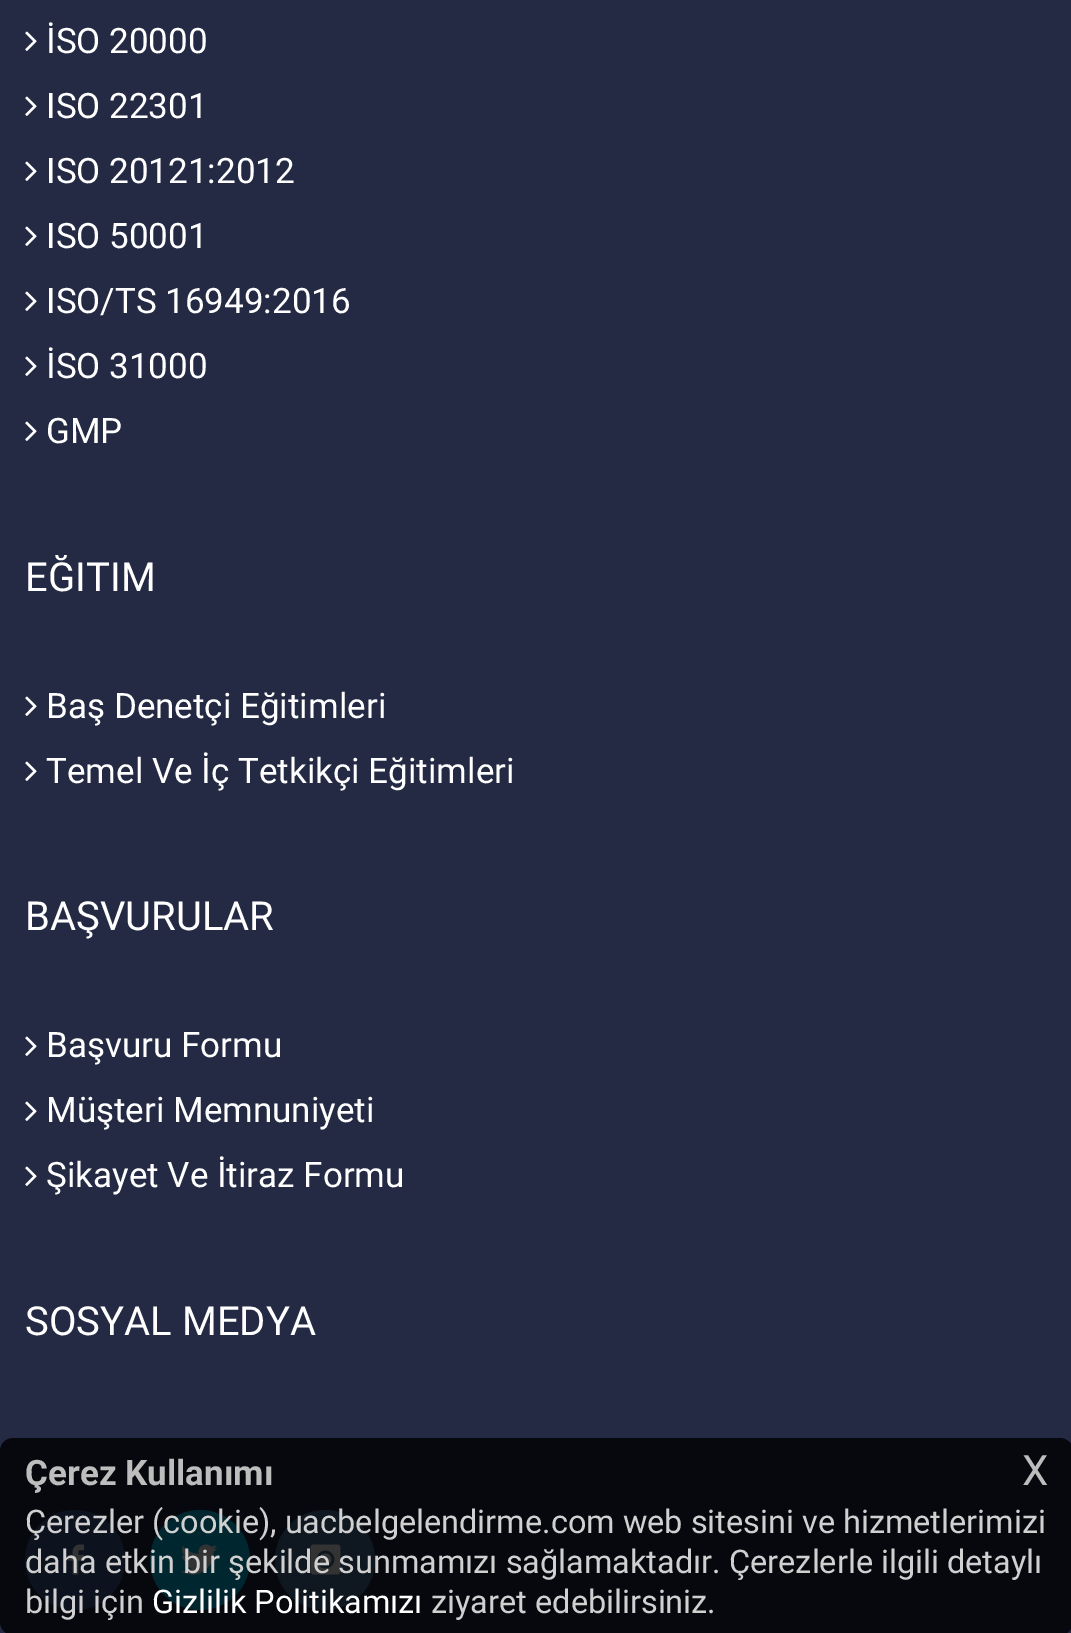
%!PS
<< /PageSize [1071 1633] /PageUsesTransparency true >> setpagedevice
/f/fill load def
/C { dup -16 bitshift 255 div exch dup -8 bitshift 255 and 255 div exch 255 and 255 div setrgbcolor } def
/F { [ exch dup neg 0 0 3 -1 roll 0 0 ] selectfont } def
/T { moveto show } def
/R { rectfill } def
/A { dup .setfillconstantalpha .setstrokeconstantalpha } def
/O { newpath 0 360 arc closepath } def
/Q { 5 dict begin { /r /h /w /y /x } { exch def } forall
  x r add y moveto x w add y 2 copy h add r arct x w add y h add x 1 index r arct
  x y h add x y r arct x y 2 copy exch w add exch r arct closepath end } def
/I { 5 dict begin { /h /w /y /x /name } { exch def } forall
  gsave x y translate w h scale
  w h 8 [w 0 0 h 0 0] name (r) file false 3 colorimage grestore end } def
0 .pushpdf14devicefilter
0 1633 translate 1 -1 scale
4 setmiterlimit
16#242A44 C
0 0 1071 1633 R
(1.rgb) 25 31 12 20 I
/Roboto-Regular 35 F
16#FFFFFF C
(İSO 20000) 46 53 T
(1.rgb) 25 96 12 20 I
(ISO 22301) 46 118 T
(1.rgb) 25 161 12 20 I
(ISO 20121:2012) 46 183 T
(1.rgb) 25 226 12 20 I
(ISO 50001) 46 248 T
(1.rgb) 25 291 12 20 I
(ISO/TS 16949:2016) 46 313 T
(1.rgb) 25 356 12 20 I
(İSO 31000) 46 378 T
(1.rgb) 25 421 12 20 I
(GMP) 46 443 T
/Roboto-Regular 40 F
(EĞITIM) 25 591 T
(1.rgb) 25 696 12 20 I
/Roboto-Regular 35 F
(Baş Denetçi Eğitimleri) 46 718 T
(1.rgb) 25 761 12 20 I
(Temel Ve İç Tetkikçi Eğitimleri) 46 783 T
/Roboto-Regular 40 F
(BAŞVURULAR) 25 930 T
(1.rgb) 25 1036 12 20 I
/Roboto-Regular 35 F
(Başvuru Formu) 46 1057 T
(1.rgb) 25 1101 12 20 I
(Müşteri Memnuniyeti) 46 1122 T
(1.rgb) 25 1166 12 20 I
(Şikayet Ve İtiraz Formu) 46 1187 T
/Roboto-Regular 40 F
(SOSYAL MEDYA) 25 1335 T
16#3B5998 C
75 1560 50 O f
(2.rgb) 67 1544 18 31 I
16#00BDEC C
200 1560 50 O f
(3.rgb) 180 1544 38 31 I
16#4C799F C
325 1560 50 O f
(4.rgb) 310 1544 31 31 I
0.8 A
16#000000 C
0 1438 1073 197 13 Q f
/Roboto-Bold 35 F
1 A
16#BDBDBD C
(Çerez Kullanımı) 25 1485 T
/Roboto-Regular 42 F
(X) 1022 1485 T
/Roboto-Regular 32.5 F
16#D0D0D0 C
(Çerezler \(cookie\), uacbelgelendirme.com web sitesini ve hizmetlerimizi) 25 1533 T
(daha etkin bir şekilde sunmamızı sağlamaktadır. Çerezlerle ilgili detaylı) 25 1573 T
(bilgi için) 25 1613 T
16#FFFFFF C
(Gizlilik Politikamızı) 152 1613 T
16#D0D0D0 C
(ziyaret edebilirsiniz.) 431 1613 T
.poppdf14devicefilter showpage
